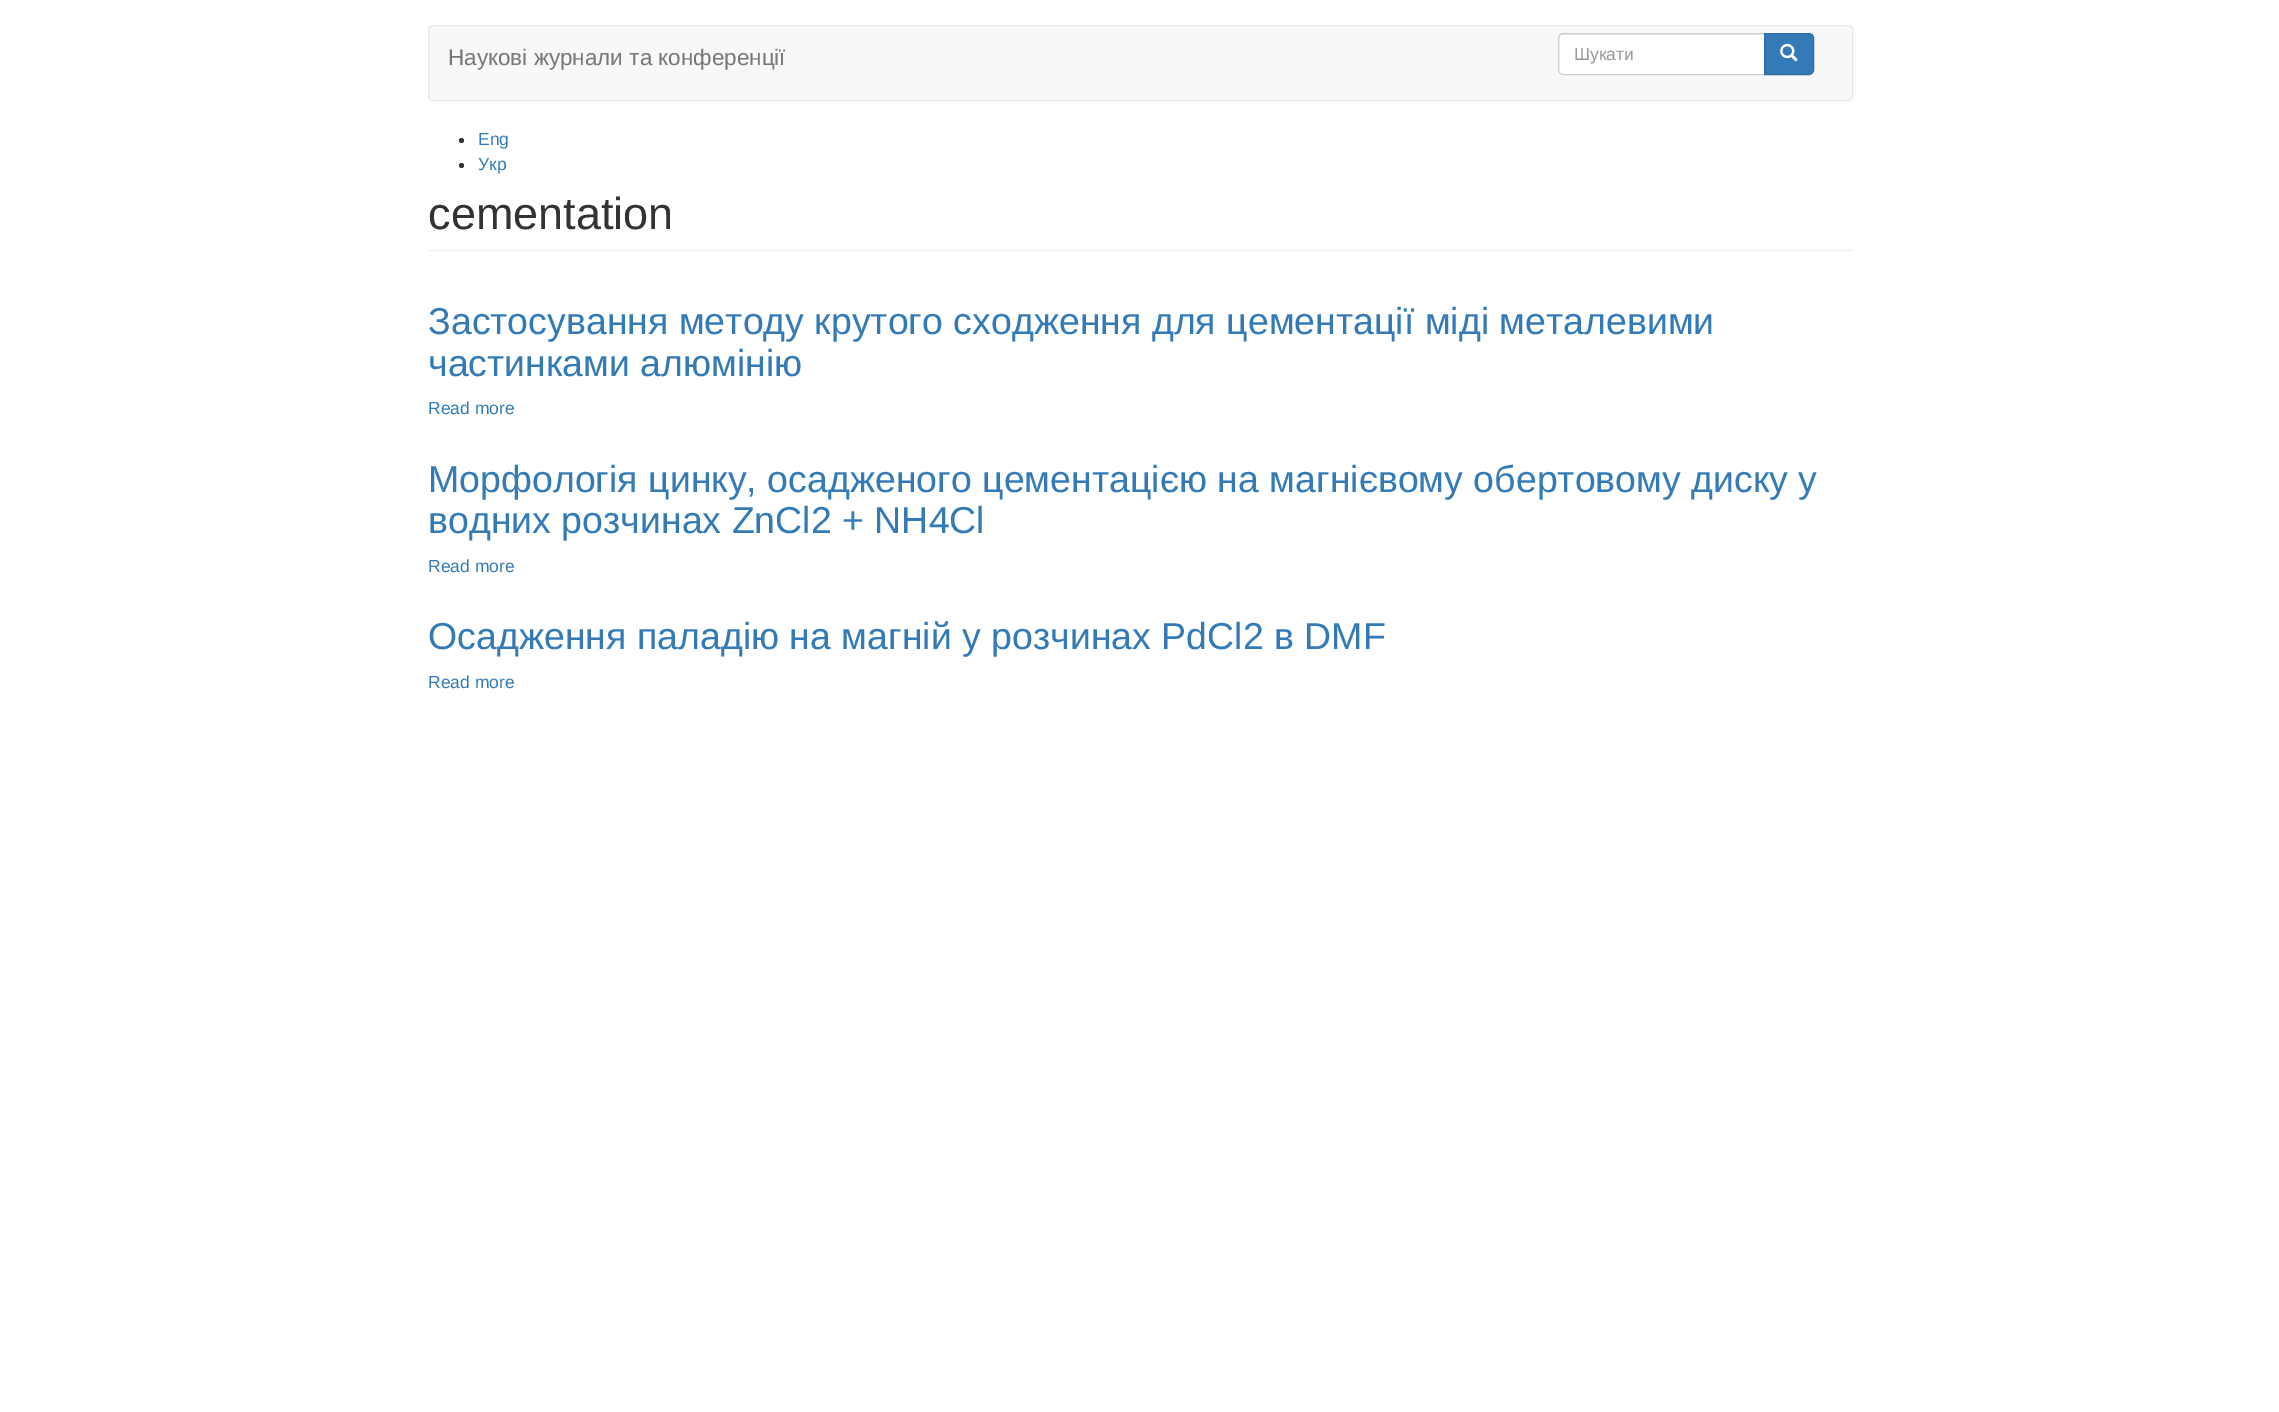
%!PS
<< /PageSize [2279 1412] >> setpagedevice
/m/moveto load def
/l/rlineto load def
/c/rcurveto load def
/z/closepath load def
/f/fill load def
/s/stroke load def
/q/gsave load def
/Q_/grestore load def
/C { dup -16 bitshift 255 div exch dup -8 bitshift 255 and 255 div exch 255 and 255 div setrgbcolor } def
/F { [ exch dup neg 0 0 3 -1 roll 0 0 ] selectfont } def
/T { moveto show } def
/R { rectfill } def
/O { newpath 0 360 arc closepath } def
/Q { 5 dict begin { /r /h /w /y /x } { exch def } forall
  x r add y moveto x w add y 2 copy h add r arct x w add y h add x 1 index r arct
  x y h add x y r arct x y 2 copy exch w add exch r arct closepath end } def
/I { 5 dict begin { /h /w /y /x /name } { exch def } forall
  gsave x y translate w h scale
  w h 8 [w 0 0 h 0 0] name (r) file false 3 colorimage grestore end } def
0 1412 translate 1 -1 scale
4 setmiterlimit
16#FFFFFF C
0 0 2279 1412 R
16#F8F8F8 C
428.5 25.5 1424 75 4.5 Q q f Q_
16#E7E7E7 C
s
/LiberationSans-Regular 22.5 F
16#777777 C
(Наукові журнали та конференції) 448 65 T
16#FFFFFF C
1563 33 m 202 0 l 0 42 l -202 0 l -3 0 -5 -2 -5 -5 c 0 -32 l 0 -3 2 -5 5 -5 c z f
16#ECECEC C
1562 35 m 202 0 l 0 -1 l -203 0 l -2 1 -2 3 -2 5 c 0 -2 1 -4 3 -4 c z f
16#CCCCCC C
1563 33.5 m 201.5 0 l 0 41 l -201.5 0 l -2.5 0 -4.5 -2 -4.5 -4.5 c 0 -32 l 0 -2.5 2 -4.5 4.5 -4.5 c z s
/LiberationSans-Regular 17.5 F
16#999999 C
(Шукати) 1574 60 T
16#337AB7 C
1764.5 33.5 m 44.5 0 l 2.5 0 4.5 2 4.5 4.5 c 0 32 l 0 2.5 -2 4.5 -4.5 4.5 c -44.5 0 l z q f Q_
16#2E6DA4 C
s
(1.rgb) 1780 43 18 19 I
16#333333 C
461.5 140.5 2.5 O f
16#337AB7 C
(Eng) 478 145 T
16#333333 C
461.5 165.5 2.5 O f
16#337AB7 C
(Укр) 478 170 T
16#EEEEEE C
428 250 1425 1 R
/LiberationSans-Regular 45 F
16#333333 C
(cementation) 428 229 T
/LiberationSans-Regular 37.5 F
16#337AB7 C
(Застосування методу крутого сходження для цементації міді металевими) 428 334 T
(частинками алюмінію) 428 376 T
/LiberationSans-Regular 17.5 F
(Read more) 428 414 T
/LiberationSans-Regular 37.5 F
(Морфологія цинку, осадженого цементацією на магнієвому обертовому диску у) 428 492 T
(водних розчинах ZnCl2 + NH4Cl) 428 533 T
/LiberationSans-Regular 17.5 F
(Read more) 428 572 T
/LiberationSans-Regular 37.5 F
(Осадження паладію на магній у розчинах PdCl2 в DMF) 428 649 T
/LiberationSans-Regular 17.5 F
(Read more) 428 688 T
showpage
